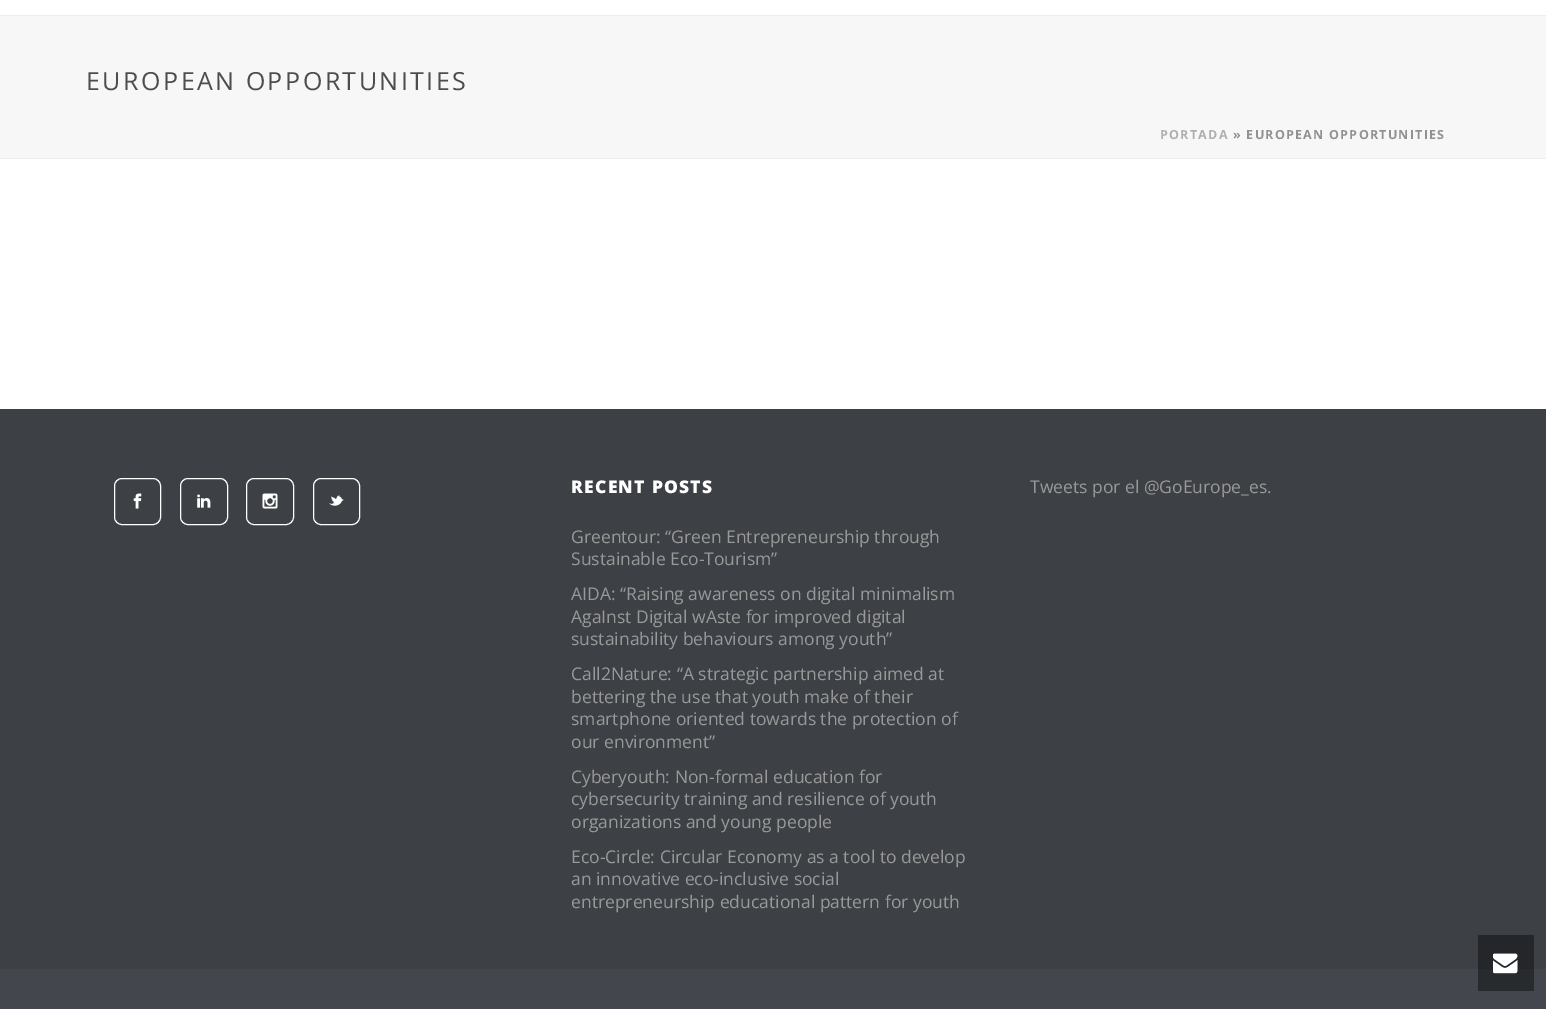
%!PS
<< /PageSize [1546 1009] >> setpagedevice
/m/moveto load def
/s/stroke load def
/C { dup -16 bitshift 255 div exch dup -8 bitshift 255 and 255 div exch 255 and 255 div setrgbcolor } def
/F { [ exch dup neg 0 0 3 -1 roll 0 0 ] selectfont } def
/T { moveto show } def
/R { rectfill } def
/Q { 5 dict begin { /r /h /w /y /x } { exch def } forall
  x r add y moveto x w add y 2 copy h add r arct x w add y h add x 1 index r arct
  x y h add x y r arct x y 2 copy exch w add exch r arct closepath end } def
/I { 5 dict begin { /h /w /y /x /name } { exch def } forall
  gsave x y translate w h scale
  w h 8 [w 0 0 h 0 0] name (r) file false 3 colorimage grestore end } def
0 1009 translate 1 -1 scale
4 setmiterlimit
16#FFFFFF C
0 0 1546 1009 R
16#F7F7F7 C
0 16 1546 142 R
16#EDEDED C
0 158 1546 1 R
0 15 1546 1 R
/OpenSans-Regular 25 F
16#4D4D4D C
86 90 m 2.5 0 (EUROPEAN OPPORTUNITIES) ashow
/OpenSans-Bold 12.5 F
16#AFAFAF C
1160 139 m 1.25 0 (PORTADA) ashow
16#919191 C
1233 139 m 1.25 0 (» EUROPEAN OPPORTUNITIES) ashow
16#3D4045 C
0 409 1546 560 R
16#252629 C
1478 935 56 34 R
16#FFFFFF C
114.5 478.5 46 46 7.5 Q s
(1.rgb) 133 493 9 16 I
180.5 478.5 47 46 7.5 Q s
(2.rgb) 197 494 14 14 I
246.5 478.5 47 46 7.5 Q s
(3.rgb) 262 493 16 16 I
313.5 478.5 46 46 7.5 Q s
(4.rgb) 329 495 15 11 I
/OpenSans-ExtraBold 17.5 F
571 493 m 1.25 0 (RECENT POSTS) ashow
/OpenSans-Regular 17.5 F
16#999999 C
(Greentour: “Green Entrepreneurship through) 571 543 T
(Sustainable Eco-Tourism”) 571 565 T
(AIDA: “Raising awareness on digital minimalism) 571 600 T
(AgaInst Digital wAste for improved digital) 571 623 T
(sustainability behaviours among youth”) 571 645 T
(Call2Nature: “A strategic partnership aimed at) 571 680 T
(bettering the use that youth make of their) 571 703 T
(smartphone oriented towards the protection of) 571 725 T
(our environment”) 571 748 T
(Cyberyouth: Non-formal education for) 571 783 T
(cybersecurity training and resilience of youth) 571 805 T
(organizations and young people) 571 828 T
(Eco-Circle: Circular Economy as a tool to develop) 571 863 T
(an innovative eco-inclusive social) 571 885 T
(entrepreneurship educational pattern for youth) 571 908 T
(Tweets por el @GoEurope_es.) 1030 493 T
16#43474D C
0 969 1546 40 R
16#282B2E C
1478 969 56 22 R
(5.rgb) 1493 953 25 21 I
showpage
